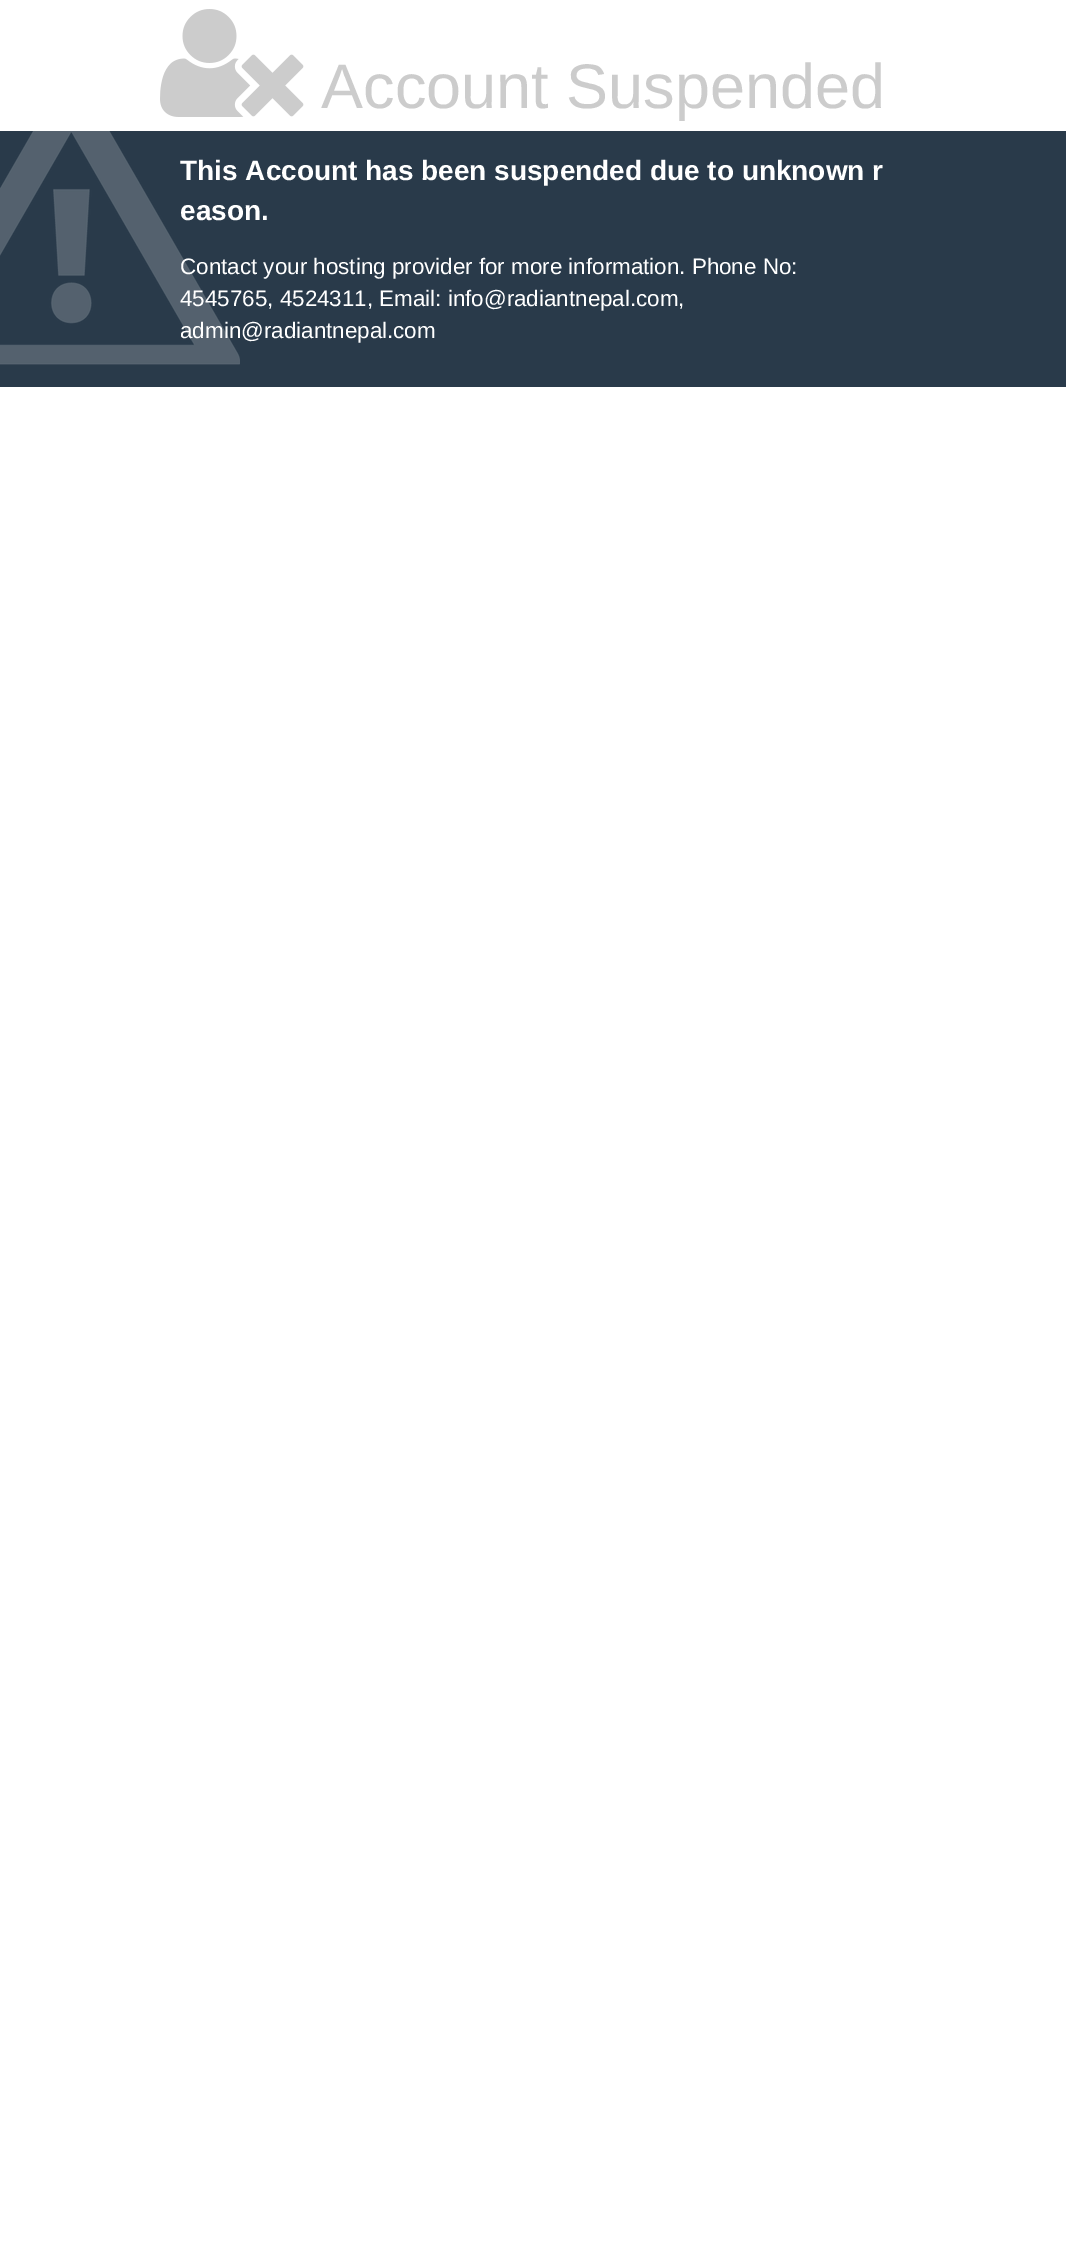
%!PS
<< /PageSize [1066 2251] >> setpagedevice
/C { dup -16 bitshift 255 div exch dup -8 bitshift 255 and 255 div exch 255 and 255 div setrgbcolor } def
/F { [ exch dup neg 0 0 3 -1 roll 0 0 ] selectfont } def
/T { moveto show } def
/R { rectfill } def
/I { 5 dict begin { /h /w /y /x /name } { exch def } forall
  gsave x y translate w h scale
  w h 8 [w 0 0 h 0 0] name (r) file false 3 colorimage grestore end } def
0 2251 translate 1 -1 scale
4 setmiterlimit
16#FFFFFF C
0 0 1066 2251 R
(1.rgb) 160 9 144 108 I
/LiberationSans-Regular 63 F
16#CCCCCC C
(Account Suspended) 321 108 T
16#293A4A C
0 131 1066 256 R
(2.rgb) 0 131 240 234 I
/LiberationSans-Bold 28 F
16#FFFFFF C
(This Account has been suspended due to unknown r) 180 180 T
(eason.) 180 220 T
/LiberationSans-Regular 22.4 F
(Contact your hosting provider for more information. Phone No:) 180 274 T
(4545765, 4524311, Email: info@radiantnepal.com,) 180 306 T
(admin@radiantnepal.com) 180 338 T
showpage
